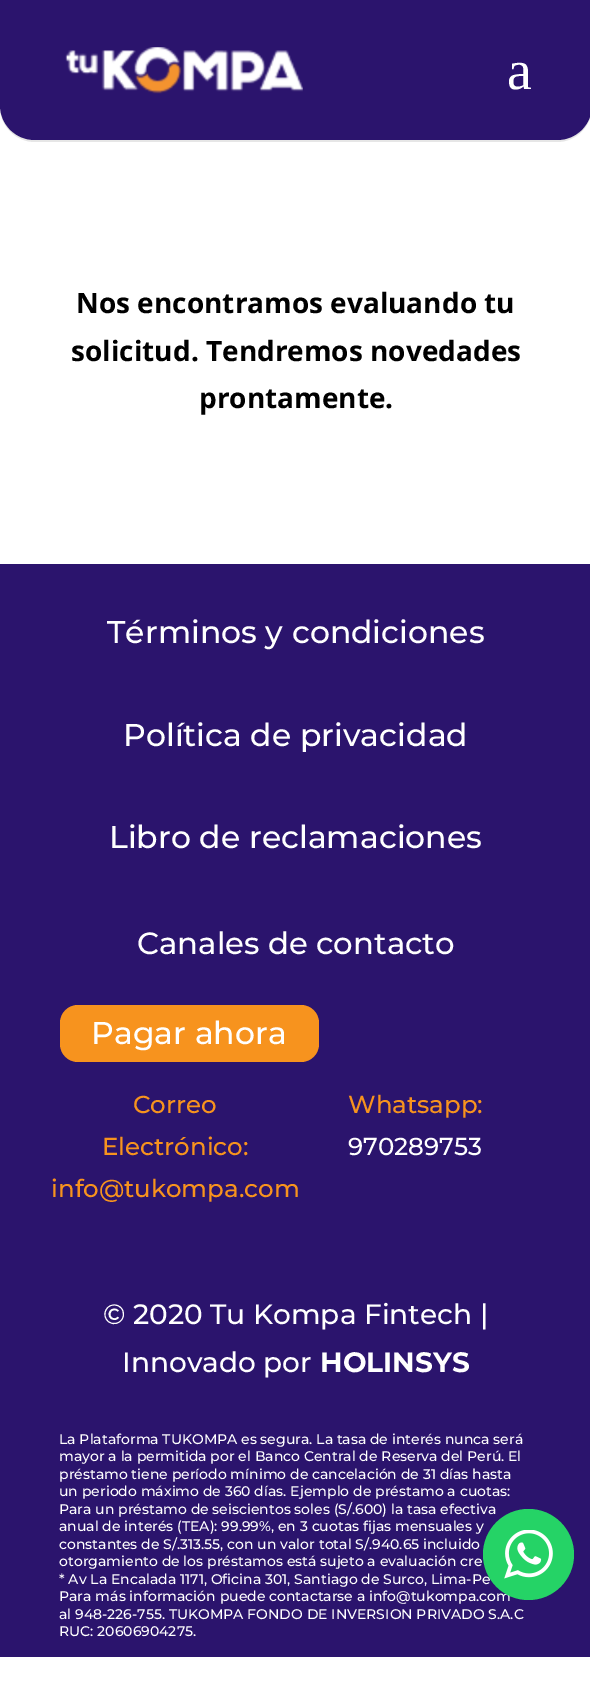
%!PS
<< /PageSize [590 1687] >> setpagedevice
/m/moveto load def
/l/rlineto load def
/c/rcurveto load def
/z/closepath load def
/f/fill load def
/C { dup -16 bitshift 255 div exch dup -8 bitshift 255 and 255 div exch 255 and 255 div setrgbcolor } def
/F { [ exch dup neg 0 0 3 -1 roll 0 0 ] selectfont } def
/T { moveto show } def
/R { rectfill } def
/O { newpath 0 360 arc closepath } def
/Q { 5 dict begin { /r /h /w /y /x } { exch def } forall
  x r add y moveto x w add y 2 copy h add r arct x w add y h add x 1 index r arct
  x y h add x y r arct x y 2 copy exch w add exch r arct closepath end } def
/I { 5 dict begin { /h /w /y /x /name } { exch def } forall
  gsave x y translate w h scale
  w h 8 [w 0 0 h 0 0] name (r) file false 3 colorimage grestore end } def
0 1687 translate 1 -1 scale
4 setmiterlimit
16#FFFFFF C
0 0 590 1687 R
16#E6E6E6 C
0 105 m 0 2 l 0 19 16 35 35 35 c 522 0 l 19 0 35 -16 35 -35 c 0 -105 l 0 103 l 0 19 -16 35 -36 35 c -521 0 l -19 0 -35 -16 -35 -35 c z f
16#2B146D C
0 0 m 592 0 l 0 105 l 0 19.5 -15.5 35 -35 35 c -522 0 l -19.5 0 -35 -15.5 -35 -35 c z f
(1.rgb) 65 47 238 47 I
/LiberationSerif-Regular 56 F
16#FFFFFF C
(a) 507 89 T
/OpenSans-Bold 28 F
16#000000 C
(Nos encontramos evaluando tu) 76 313 T
(solicitud. Tendremos novedades) 71 361 T
(prontamente.) 199 408 T
16#2B146D C
0 564 590 1093 R
/Montserrat-Medium 31.5 F
16#FFFFFF C
(Términos y condiciones) 107 643 T
(Política de privacidad) 123 746 T
(Libro de reclamaciones) 109 848 T
/Montserrat-Medium 30.75 F
(Canales de contacto) 137 954 T
16#F7931E C
60 1005 259 57 18 Q f
/Montserrat-Medium 31.5 F
16#FFFFFF C
(Pagar ahora) 91 1044 T
/Montserrat-Medium 24.5 F
16#F7931E C
(Correo) 133 1113 T
(Electrónico:) 102 1155 T
(info@tukompa.com) 51 1197 T
(Whatsapp:) 348 1113 T
16#FFFFFF C
(970289753) 348 1155 T
/Montserrat-Medium 28 F
(© 2020 Tu Kompa Fintech |) 103 1324 T
(Innovado por) 122 1372 T
/Montserrat-Bold 28 F
(HOLINSYS) 320 1372 T
/Montserrat-Medium 14 F
(La Plataforma TUKOMPA es segura. La tasa de interés nunca será) 59 1444 T
(mayor a la permitida por el Banco Central de Reserva del Perú. El) 59 1461 T
(préstamo tiene período mínimo de cancelación de 31 días hasta) 59 1479 T
(un periodo máximo de 360 días. Ejemplo de préstamo a cuotas:) 59 1496 T
(Para un préstamo de seiscientos soles \(S/.600\) la tasa efectiva) 59 1514 T
(anual de interés \(TEA\): 99.99%, en 3 cuotas fijas mensuales y) 59 1531 T
(constantes de S/.313.55, con un valor total S/.940.65 incluido) 59 1549 T
(otorgamiento de los préstamos está sujeto a evaluación cre) 59 1566 T
(* Av La Encalada 1171, Oficina 301, Santiago de Surco, Lima-Pe) 59 1584 T
(Para más información puede contactarse a info@tukompa.com) 59 1601 T
(al 948-226-755. TUKOMPA FONDO DE INVERSION PRIVADO S.A.C) 59 1619 T
(RUC: 20606904275.) 59 1636 T
16#25D366 C
528.5 1554.5 45.5 O f
(2.rgb) 504 1530 49 49 I
showpage
